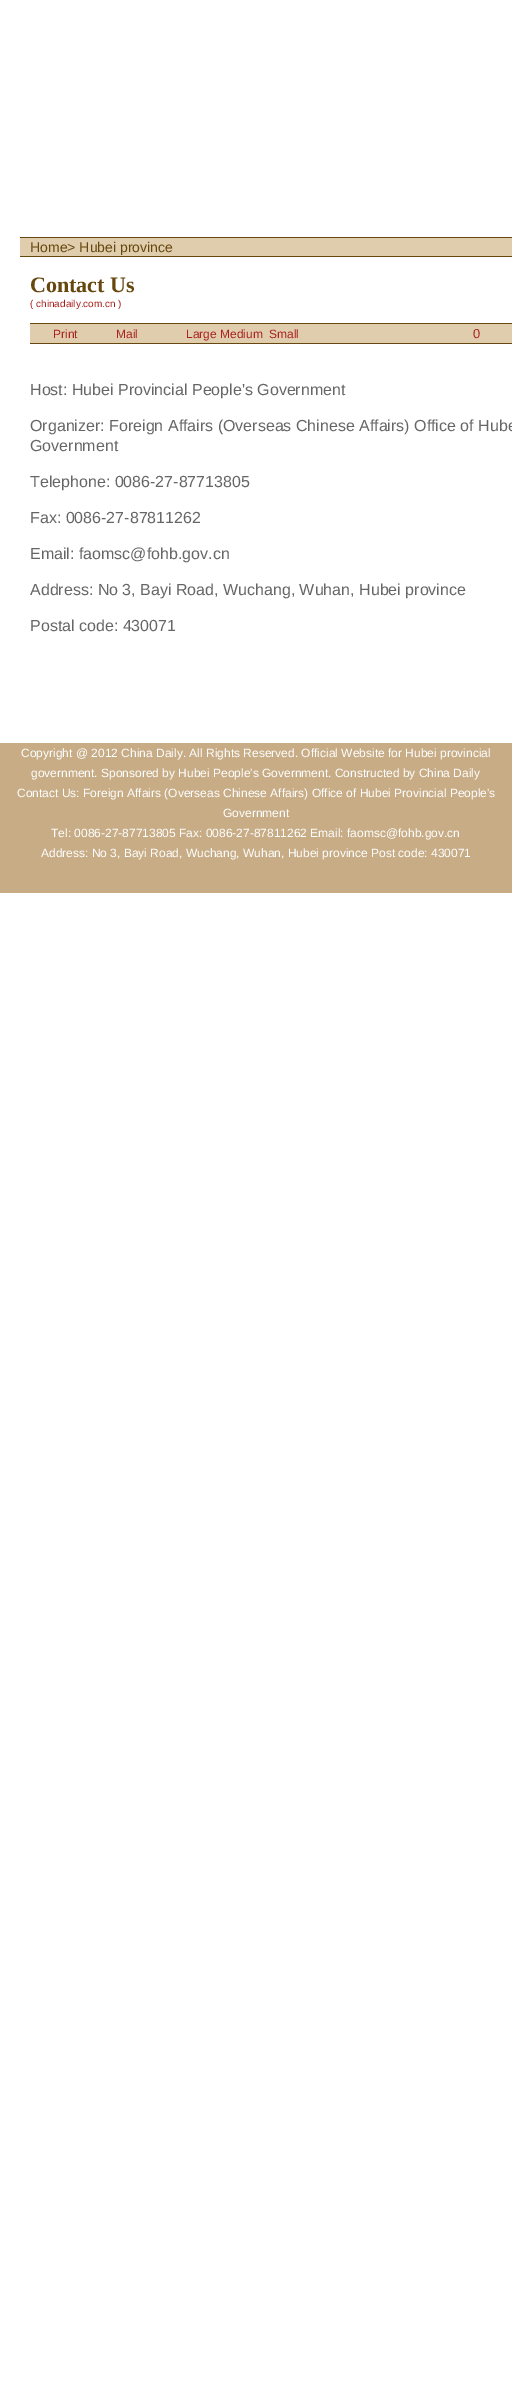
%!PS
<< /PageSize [512 2386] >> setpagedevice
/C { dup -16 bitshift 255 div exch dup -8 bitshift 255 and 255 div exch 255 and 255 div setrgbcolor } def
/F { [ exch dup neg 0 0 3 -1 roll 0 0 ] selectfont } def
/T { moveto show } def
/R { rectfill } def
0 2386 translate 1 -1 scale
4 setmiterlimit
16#FFFFFF C
0 0 512 2386 R
16#E0CDAD C
20 238 492 18 R
16#66480F C
20 237 492 1 R
20 256 492 1 R
/LiberationSans-Regular 14 F
(Home> Hubei province) 30 252 T
/LiberationSerif-Bold 22 F
(Contact Us) 30 292 T
/LiberationSans-Regular 10 F
16#A61A19 C
(\( chinadaily.com.cn \)) 30 307 T
16#66480F C
30 323 482 1 R
16#E0CDAD C
30 324 482 19 R
/LiberationSans-Regular 12 F
16#A9221F C
(Print) 53 338 T
(Mail) 116 338 T
(Large Medium) 186 338 T
(Small) 269 338 T
/LiberationSans-Regular 13 F
(0) 473 338 T
16#66480F C
30 343 482 1 R
/LiberationSans-Regular 16 F
16#666666 C
(Host: Hubei Provincial People's Government) 30 395 T
(Organizer: Foreign Affairs \(Overseas Chinese Affairs\) Office of Hube) 30 431 T
(Government) 30 451 T
(Telephone: 0086-27-87713805) 30 487 T
(Fax: 0086-27-87811262) 30 523 T
(Email: faomsc@fohb.gov.cn) 30 559 T
(Address: No 3, Bayi Road, Wuchang, Wuhan, Hubei province) 30 595 T
(Postal code: 430071) 30 631 T
16#C7AC86 C
0 743 512 150 R
/LiberationSans-Regular 12 F
16#FFFFFF C
(Copyright @ 2012 China Daily. All Rights Reserved. Official Website for Hubei provincial) 21 757 T
(government. Sponsored by Hubei People's Government. Constructed by China Daily) 31 777 T
(Contact Us: Foreign Affairs \(Overseas Chinese Affairs\) Office of Hubei Provincial People's) 17 797 T
(Government) 223 817 T
(Tel: 0086-27-87713805 Fax: 0086-27-87811262 Email: faomsc@fohb.gov.cn) 51 837 T
(Address: No 3, Bayi Road, Wuchang, Wuhan, Hubei province Post code: 430071) 41 857 T
showpage
